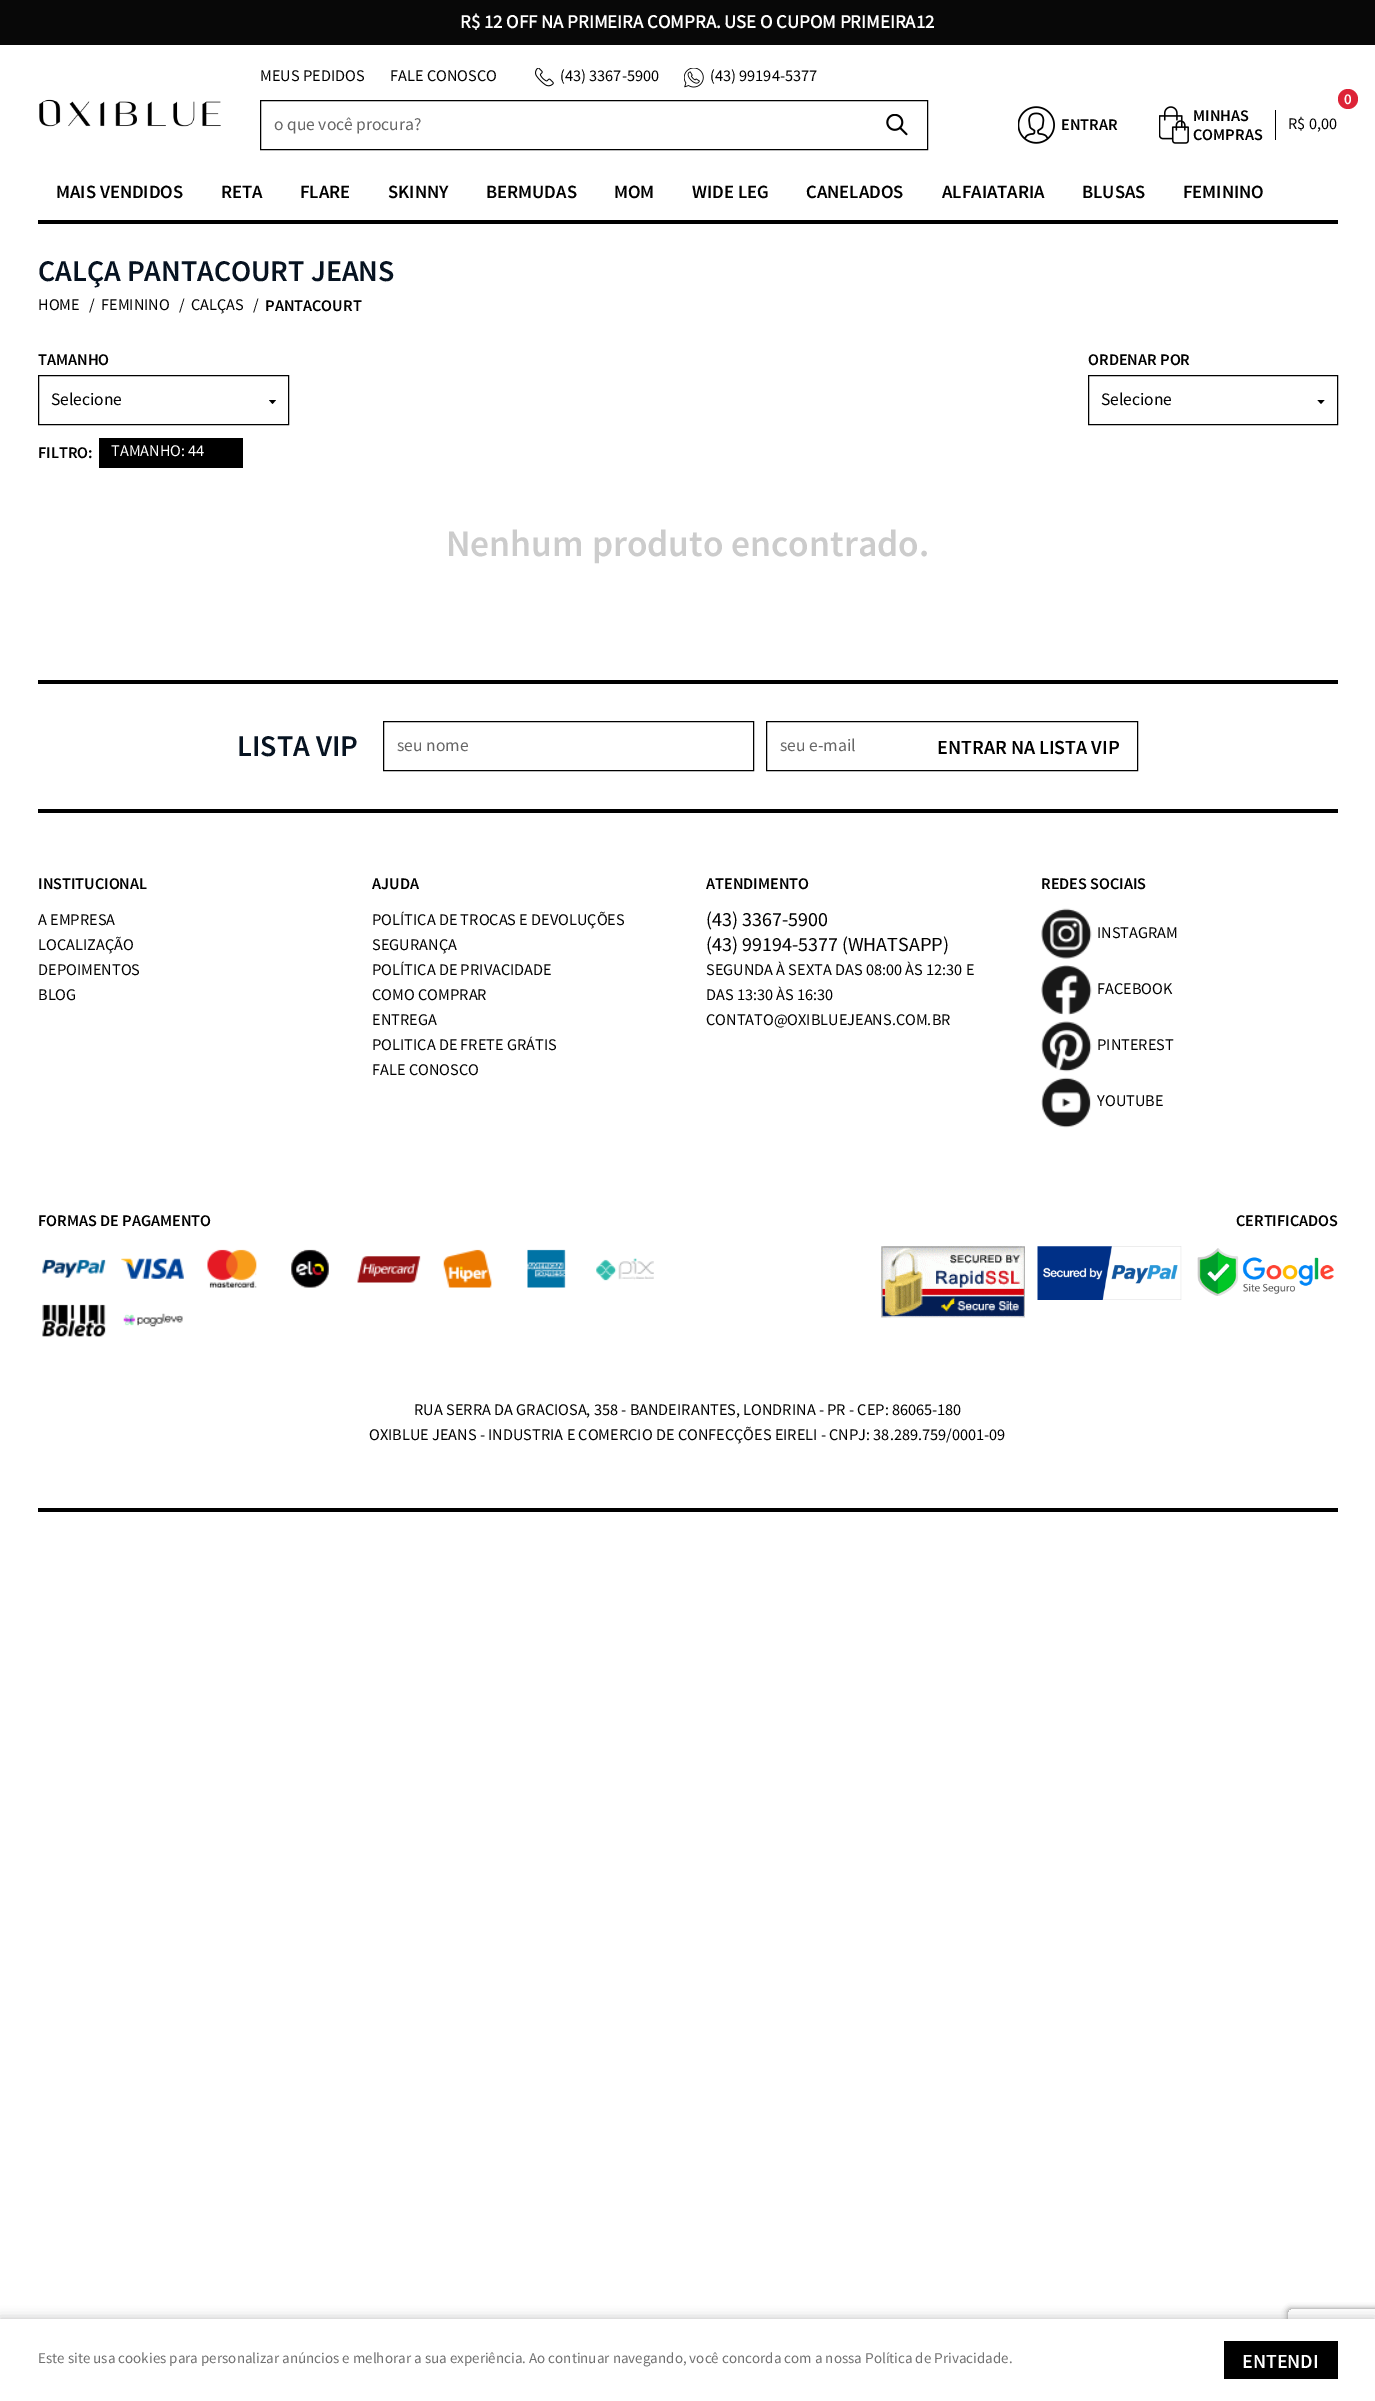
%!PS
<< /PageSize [1375 2401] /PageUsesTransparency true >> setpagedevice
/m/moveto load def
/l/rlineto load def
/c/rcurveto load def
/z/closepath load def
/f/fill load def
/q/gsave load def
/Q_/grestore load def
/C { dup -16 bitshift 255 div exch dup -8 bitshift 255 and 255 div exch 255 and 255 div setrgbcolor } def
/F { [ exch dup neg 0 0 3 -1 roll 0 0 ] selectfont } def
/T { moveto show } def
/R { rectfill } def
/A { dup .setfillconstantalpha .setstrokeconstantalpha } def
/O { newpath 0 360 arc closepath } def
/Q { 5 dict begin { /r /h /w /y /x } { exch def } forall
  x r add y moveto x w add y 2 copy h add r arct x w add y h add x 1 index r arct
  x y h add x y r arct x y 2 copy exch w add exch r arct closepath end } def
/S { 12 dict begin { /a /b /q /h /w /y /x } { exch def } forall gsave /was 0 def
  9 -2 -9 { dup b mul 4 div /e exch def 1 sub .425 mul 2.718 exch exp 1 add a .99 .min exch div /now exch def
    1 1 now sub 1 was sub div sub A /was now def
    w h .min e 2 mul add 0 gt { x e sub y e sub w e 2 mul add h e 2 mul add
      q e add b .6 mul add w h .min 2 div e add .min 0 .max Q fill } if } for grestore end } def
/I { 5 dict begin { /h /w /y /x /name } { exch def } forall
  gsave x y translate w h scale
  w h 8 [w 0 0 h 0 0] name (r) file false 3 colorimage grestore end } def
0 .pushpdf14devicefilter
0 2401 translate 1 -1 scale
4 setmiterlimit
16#FFFFFF C
0 0 1375 2401 R
16#080808 C
0 0 1375 45 R
/SourceSansPro-Bold 18.75 F
16#FFFFFF C
(R$ 12 OFF NA PRIMEIRA COMPRA. USE O CUPOM PRIMEIRA12) 460 28 T
/SourceSansPro-Regular 16.25 F
16#000000 C
(MEUS PEDIDOS) 260 81 T
(FALE CONOSCO) 390 81 T
(1.rgb) 535 68 19 19 I
(\(43\) 3367-5900) 560 81 T
(2.rgb) 684 68 20 20 I
(\(43\) 99194-5377) 710 81 T
(3.rgb) 39 99 182 28 I
260.5 100.5 667 49 rectstroke
/SourceSansPro-Regular 17.5 F
16#666666 C
(o que você procura?) 274 130 T
(4.rgb) 886 114 22 22 I
(5.rgb) 1018 106 37 38 I
/SourceSansPro-SemiBold 16.25 F
16#000000 C
(ENTRAR) 1061 130 T
16#DD2337 C
1348 99 10 O f
/SourceSansPro-SemiBold 15 F
16#FFFFFF C
(0) 1344 104 T
(6.rgb) 1159 106 30 38 I
/SourceSansPro-SemiBold 16.25 F
16#000000 C
(MINHAS) 1193 121 T
(COMPRAS) 1193 140 T
1275 110 1 30 R
/SourceSansPro-Regular 16.25 F
(R$ 0,00) 1288 129 T
38 220 1300 4 R
/SourceSansPro-SemiBold 18.75 F
(MAIS VENDIDOS) 56 198 T
(RETA) 221 198 T
(FLARE) 300 198 T
(SKINNY) 388 198 T
(BERMUDAS) 486 198 T
(MOM) 614 198 T
(WIDE LEG) 692 198 T
(CANELADOS) 806 198 T
(ALFAIATARIA) 942 198 T
(BLUSAS) 1082 198 T
(FEMININO) 1183 198 T
/SourceSansPro-SemiBold 30 F
16#071321 C
(CALÇA PANTACOURT JEANS) 38 281 T
/SourceSansPro-Regular 16.25 F
16#000000 C
(HOME) 38 310 T
(/) 89 310 T
(FEMININO) 101 310 T
(/) 179 310 T
(CALÇAS) 191 310 T
(/) 253 310 T
/SourceSansPro-SemiBold 16.25 F
(PANTACOURT) 265 311 T
(TAMANHO) 38 365 T
38.5 375.5 250 49 rectstroke
/SourceSansPro-Regular 17.5 F
(Selecione) 51 405 T
269 400 m 7 0 l -3.5 4 l z f
/SourceSansPro-SemiBold 16.25 F
(ORDENAR POR) 1088 365 T
1088.5 375.5 249 49 rectstroke
/SourceSansPro-Regular 17.5 F
(Selecione) 1101 405 T
1317.5 400 m 7 0 l -3.5 4 l z f
/SourceSansPro-SemiBold 16.25 F
(FILTRO:) 38 458 T
99 438 144 30 R
/SourceSansPro-Regular 16.25 F
16#FFFFFF C
(TAMANHO: 44) 111 456 T
/SourceSansPro-SemiBold 37.5 F
16#CCCCCC C
(Nenhum produto encontrado.) 446 556 T
16#000000 C
38 680 1300 4 R
/SourceSansPro-SemiBold 30 F
16#071321 C
(LISTA VIP) 237 756 T
16#000000 C
383.5 721.5 370 49 rectstroke
/SourceSansPro-Regular 17.5 F
16#666666 C
(seu nome) 397 751 T
16#000000 C
766.5 721.5 371 49 rectstroke
16#666666 C
(seu e-mail) 780 751 T
/SourceSansPro-SemiBold 20 F
16#000000 C
(ENTRAR NA LISTA VIP) 937 754 T
38 809 1300 4 R
/SourceSansPro-SemiBold 16.25 F
(INSTITUCIONAL) 38 889 T
/SourceSansPro-Regular 16.25 F
(A EMPRESA) 38 925 T
(LOCALIZAÇÃO) 38 950 T
(DEPOIMENTOS) 38 975 T
(BLOG) 38 1000 T
/SourceSansPro-SemiBold 16.25 F
(AJUDA) 372 889 T
/SourceSansPro-Regular 16.25 F
(POLÍTICA DE TROCAS E DEVOLUÇÕES) 372 925 T
(SEGURANÇA) 372 950 T
(POLÍTICA DE PRIVACIDADE) 372 975 T
(COMO COMPRAR) 372 1000 T
(ENTREGA) 372 1025 T
(POLITICA DE FRETE GRÁTIS) 372 1050 T
(FALE CONOSCO) 372 1075 T
/SourceSansPro-SemiBold 16.25 F
(ATENDIMENTO) 706 889 T
/SourceSansPro-Regular 20 F
(\(43\) 3367-5900) 706 926 T
(\(43\) 99194-5377 \(WHATSAPP\)) 706 951 T
/SourceSansPro-Regular 16.25 F
(SEGUNDA À SEXTA DAS 08:00 ÀS 12:30 E) 706 975 T
(DAS 13:30 ÀS 16:30) 706 1000 T
(CONTATO@OXIBLUEJEANS.COM.BR) 706 1025 T
/SourceSansPro-SemiBold 16.25 F
(REDES SOCIAIS) 1041 889 T
(7.rgb) 1041 908 51 51 I
/SourceSansPro-Regular 16.25 F
(INSTAGRAM) 1097 938 T
(8.rgb) 1041 965 51 50 I
(FACEBOOK) 1097 994 T
(9.rgb) 1041 1021 51 51 I
(PINTEREST) 1097 1050 T
(10.rgb) 1041 1077 50 51 I
(YOUTUBE) 1097 1106 T
/SourceSansPro-SemiBold 16.25 F
(FORMAS DE PAGAMENTO) 38 1226 T
(11.rgb) 42 1259 64 19 I
(12.rgb) 121 1258 63 21 I
(13.rgb) 207 1249 50 39 I
(14.rgb) 291 1249 38 39 I
(15.rgb) 357 1256 64 27 I
(16.rgb) 443 1249 49 39 I
(17.rgb) 527 1249 39 39 I
(18.rgb) 596 1258 58 23 I
(19.rgb) 42 1304 64 33 I
(20.rgb) 123 1313 60 14 I
(CERTIFICADOS) 1236 1226 T
(21.rgb) 881 1246 144 72 I
(22.rgb) 1037 1246 145 54 I
(23.rgb) 1197 1248 137 48 I
/SourceSansPro-Regular 16.25 F
(RUA SERRA DA GRACIOSA, 358 - BANDEIRANTES, LONDRINA - PR - CEP: 86065-180) 414 1415 T
(OXIBLUE JEANS - INDUSTRIA E COMERCIO DE CONFECÇÕES EIRELI - CNPJ: 38.289.759/0001-09) 369 1440 T
38 1508 1300 4 R
0 2319 1375 82 0 6 .25 S
q
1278 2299 m 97 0 l 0 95 l -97 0 l z 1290.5 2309 m 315 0 l 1.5 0 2.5 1 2.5 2.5 c 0 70 l 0 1.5 -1 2.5 -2.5 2.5 c -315 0 l -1.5 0 -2.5 -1 -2.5 -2.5 c 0 -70 l 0 -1.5 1 -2.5 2.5 -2.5 c z eoclip newpath
16#808080 C
1288 2309 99 75 2.5 3 1 S
Q_
16#FFFFFF C
0 2319 1375 82 R
/SourceSansPro-Regular 15 F
16#707070 C
(Este site usa cookies para personalizar anúncios e melhorar a sua experiência. Ao continuar navegando, você concorda com a nossa Política de Privacidade.) 38 2363 T
16#000000 C
1224 2341 114 38 R
/SourceSansPro-SemiBold 20 F
16#FFFFFF C
(ENTENDI) 1242 2368 T
.poppdf14devicefilter showpage
